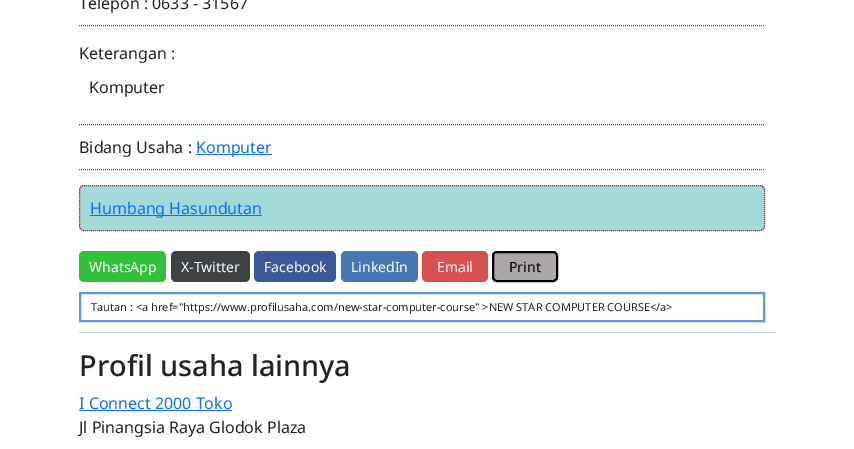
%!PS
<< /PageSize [854 449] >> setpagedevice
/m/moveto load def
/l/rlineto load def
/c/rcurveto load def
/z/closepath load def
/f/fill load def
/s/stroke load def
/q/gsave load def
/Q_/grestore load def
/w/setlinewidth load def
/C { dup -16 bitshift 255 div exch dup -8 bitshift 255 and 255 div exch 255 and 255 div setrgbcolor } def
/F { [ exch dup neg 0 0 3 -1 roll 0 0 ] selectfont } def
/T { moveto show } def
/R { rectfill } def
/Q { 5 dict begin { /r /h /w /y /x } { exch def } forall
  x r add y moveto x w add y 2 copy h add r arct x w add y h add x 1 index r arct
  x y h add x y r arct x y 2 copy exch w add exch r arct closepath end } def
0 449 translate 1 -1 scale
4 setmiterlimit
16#FFFFFF C
0 0 854 449 R
16#CCCCCC C
79 332 696 1 R
16#A52A2A C
[1 1] 0 setdash
79 25.5 m 686 0 l s
/NotoSans-Regular 16 F
16#212529 C
(Telepon : 0633 - 31567) 79 9 T
(Keterangan :) 79 59 T
(Komputer) 89 93 T
16#A52A2A C
79 124.5 m 686 0 l s
79 169.5 m 686 0 l s
16#212529 C
(Bidang Usaha :) 79 153 T
16#0D6EFD C
196 154 76 1 R
(Komputer) 196 153 T
16#A4D9D9 C
79 185 686 46 5 Q f
16#A52A2A C
84 185.5 m 676 0 l 2.5 0 4.5 2 4.5 4.5 c 0 36 l 0 2.5 -2 4.5 -4.5 4.5 c -676 0 l -2.5 0 -4.5 -2 -4.5 -4.5 c 0 -36 l 0 -2.5 2 -4.5 4.5 -4.5 c z s
16#0D6EFD C
90 215 172 1 R
(Humbang Hasundutan) 90 214 T
16#32C03C C
79 251 87 31 5 Q f
/NotoSans-Regular 14 F
16#FFFFFF C
(WhatsApp) 89 272 T
16#3F4244 C
171 251 79 31 5 Q f
16#FFFFFF C
(X-Twitter) 181 272 T
16#3B5998 C
254 251 82 31 5 Q f
16#FFFFFF C
(Facebook) 264 272 T
16#4875B4 C
341 251 77 31 5 Q f
16#FFFFFF C
(LinkedIn) 351 272 T
16#D75151 C
422 251 66 31 5 Q f
16#FFFFFF C
(Email) 437 272 T
16#ACA7A7 C
493 252 64 29 4 Q q f Q_
16#000000 C
2 w
[] 0 setdash
s
(Print) 509 272 T
16#6495ED C
80 293 684 28 rectstroke
/NotoSans-Regular 11 F
16#212529 C
(Tautan : <a href="https://www.profilusaha.com/new-star-computer-course" >NEW STAR COMPUTER COURSE</a>) 91 311 T
/NotoSans-Medium 28.9 F
(Profil usaha lainnya) 79 376 T
/NotoSans-Regular 16 F
16#0D6EFD C
(I Connect 2000 Toko) 79 409 T
79 410 153 1 R
16#212529 C
(Jl Pinangsia Raya Glodok Plaza) 79 433 T
showpage
